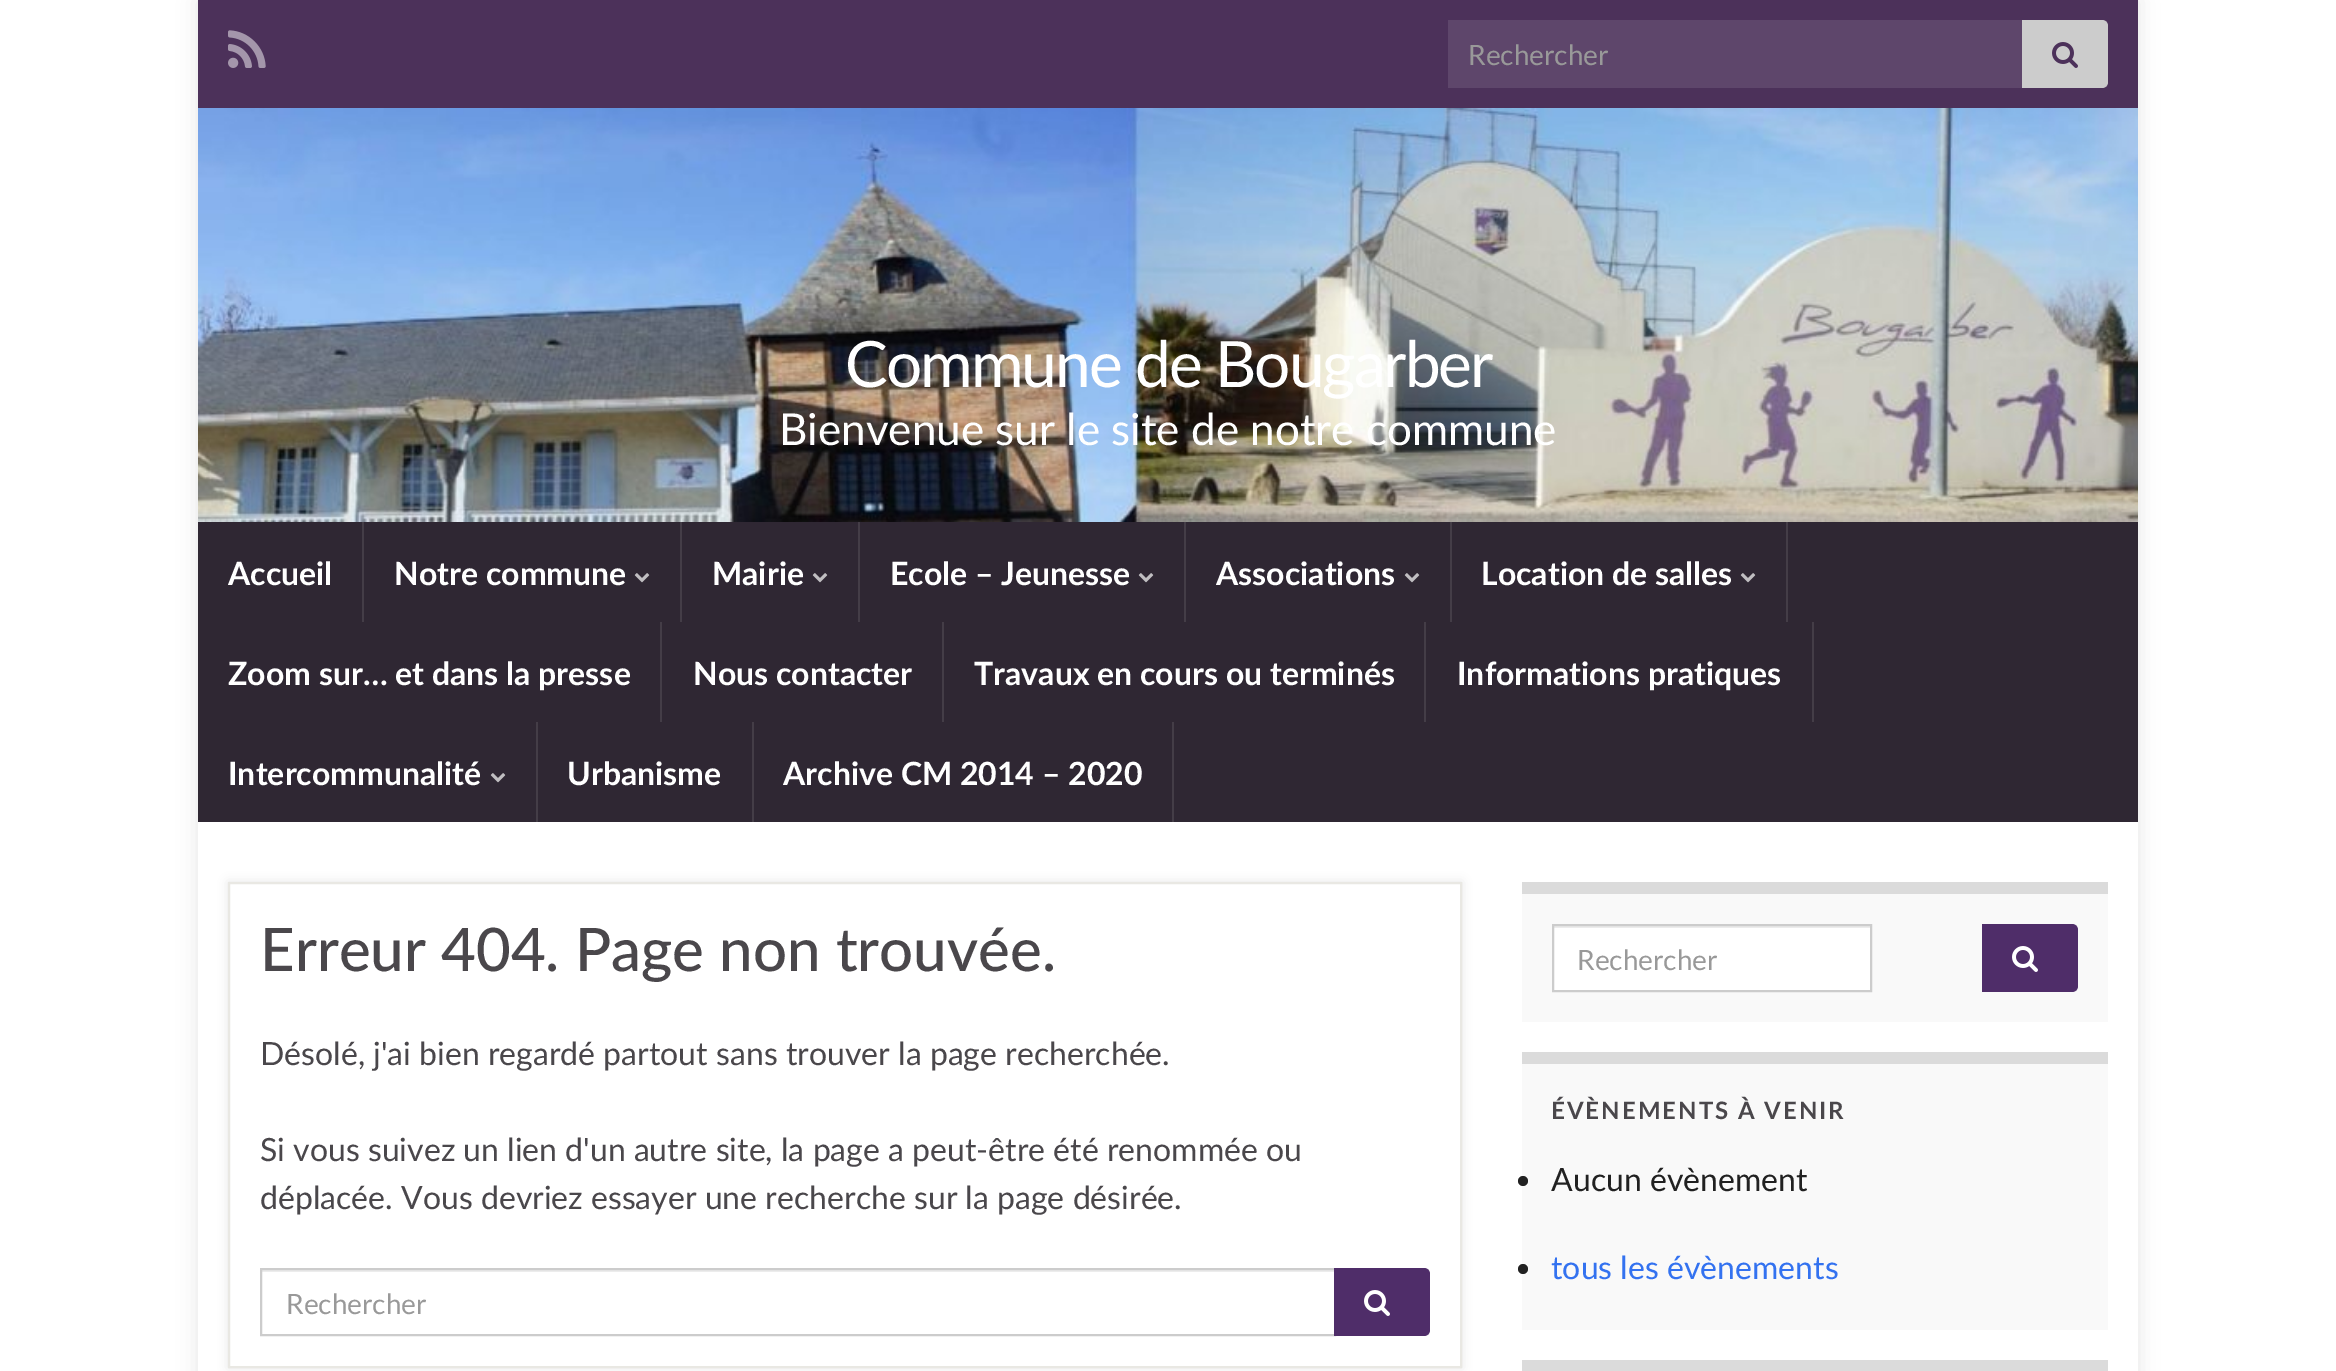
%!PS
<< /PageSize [2336 1371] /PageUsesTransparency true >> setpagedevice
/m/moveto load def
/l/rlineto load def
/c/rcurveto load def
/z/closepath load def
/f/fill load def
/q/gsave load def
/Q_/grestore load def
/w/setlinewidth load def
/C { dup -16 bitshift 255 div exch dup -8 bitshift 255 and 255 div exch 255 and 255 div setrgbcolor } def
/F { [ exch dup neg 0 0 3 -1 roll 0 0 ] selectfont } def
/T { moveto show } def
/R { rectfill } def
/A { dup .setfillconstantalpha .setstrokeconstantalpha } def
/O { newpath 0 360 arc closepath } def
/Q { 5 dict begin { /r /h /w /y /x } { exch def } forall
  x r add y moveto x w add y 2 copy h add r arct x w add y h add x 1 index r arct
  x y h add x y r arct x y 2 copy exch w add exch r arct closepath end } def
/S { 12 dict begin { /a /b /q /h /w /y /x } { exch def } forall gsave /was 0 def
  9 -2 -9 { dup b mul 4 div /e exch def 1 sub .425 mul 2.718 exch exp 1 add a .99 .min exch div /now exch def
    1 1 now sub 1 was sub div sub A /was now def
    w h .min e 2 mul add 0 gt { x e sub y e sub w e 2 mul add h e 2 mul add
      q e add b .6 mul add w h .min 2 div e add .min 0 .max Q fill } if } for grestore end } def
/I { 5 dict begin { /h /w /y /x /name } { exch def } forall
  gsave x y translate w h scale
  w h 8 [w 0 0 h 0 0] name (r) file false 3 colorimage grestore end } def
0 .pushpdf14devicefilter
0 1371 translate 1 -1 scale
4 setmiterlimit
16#FFFFFF C
0 0 2336 1371 R
q
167 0 m 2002 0 l 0 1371 l -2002 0 l z 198 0 m 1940 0 l 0 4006 l -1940 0 l z eoclip newpath
16#000000 C
198 0 1940 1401 0 10 .1 S
Q_
16#4C315A C
198 0 1940 108 R
(1.rgb) 228 30 38 38 I
16#5E466B C
1448 20 574 68 R
/Lato-Regular 28 F
16#999999 C
(Rechercher) 1468 65 T
16#CCCCCC C
2022 20 m 80 0 l 3.5 0 6 2.5 6 6 c 0 56 l 0 3.5 -2.5 6 -6 6 c -80 0 l z f
(2.rgb) 2052 42 26 26 I
(3.rgb) 198 108 1940 414 I
16#2F2733 C
198 522 1940 300 R
/Lato-Regular 64 F
16#FFFFFF C
845 387 m -2 0 (Commune de Bougarber) ashow
/Lato-Regular 44 F
(Bienvenue sur le site de notre commune) 779 445 T
16#443D47 C
362 522 2 100 R
/Lato-Bold 32 F
16#FFFFFF C
(Accueil) 228 585 T
16#443D47 C
680 522 2 100 R
16#FFFFFF C
(Notre commune) 394 585 T
(4.rgb) 634 573 16 10 I
16#443D47 C
858 522 2 100 R
16#FFFFFF C
(Mairie) 712 585 T
(4.rgb) 812 573 16 10 I
16#443D47 C
1184 522 2 100 R
16#FFFFFF C
(Ecole – Jeunesse) 890 585 T
(4.rgb) 1138 573 16 10 I
16#443D47 C
1450 522 2 100 R
16#FFFFFF C
(Associations) 1216 585 T
(4.rgb) 1404 573 16 10 I
16#443D47 C
1786 522 2 100 R
16#FFFFFF C
(Location de salles) 1481 585 T
(4.rgb) 1740 573 16 10 I
16#443D47 C
660 622 2 100 R
16#FFFFFF C
(Zoom sur… et dans la presse) 228 685 T
16#443D47 C
942 622 2 100 R
16#FFFFFF C
(Nous contacter) 693 685 T
16#443D47 C
1424 622 2 100 R
16#FFFFFF C
(Travaux en cours ou terminés) 974 685 T
16#443D47 C
1812 622 2 100 R
16#FFFFFF C
(Informations pratiques) 1457 685 T
16#443D47 C
536 722 2 100 R
16#FFFFFF C
(Intercommunalité) 228 785 T
(4.rgb) 490 773 16 10 I
16#443D47 C
752 722 2 100 R
16#FFFFFF C
(Urbanisme) 567 785 T
16#443D47 C
1172 722 2 100 R
16#FFFFFF C
(Archive CM 2014 – 2020) 783 785 T
q
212 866 m 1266 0 l 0 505 l -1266 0 l z 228 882 m 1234 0 l 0 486 l -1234 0 l z eoclip newpath
16#000000 C
228 882 1234 486 0 5 .1 S
Q_
16#E9E8E3 C
2 w
229 883 1232 484 rectstroke
/Lato-Medium 60 F
16#4A474B C
(Erreur 404. Page non trouvée.) 260 971 T
/Lato-Regular 32 F
(Désolé, j'ai bien regardé partout sans trouver la page recherchée.) 260 1065 T
(Si vous suivez un lien d'un autre site, la page a peut-être été renommée ou) 260 1161 T
(déplacée. Vous devriez essayer une recherche sur la page désirée.) 260 1209 T
16#ECECEC C
262 1270 1072 2 R
16#CCCCCC C
261 1269 1074 66 rectstroke
/Lato-Regular 28 F
16#999999 C
(Rechercher) 286 1314 T
16#4F2D69 C
1334 1268 m 90 0 l 3.5 0 6 2.5 6 6 c 0 56 l 0 3.5 -2.5 6 -6 6 c -90 0 l z f
(5.rgb) 1364 1290 26 26 I
16#F9F9F9 C
1522 894 586 128 R
16#DBDBDB C
1522 882 586 12 R
16#FFFFFF C
1554 928 316 62 R
16#ECECEC C
1554 926 316 2 R
16#CCCCCC C
1553 925 318 66 rectstroke
16#999999 C
(Rechercher) 1577 970 T
16#4F2D69 C
1982 924 m 90 0 l 3.5 0 6 2.5 6 6 c 0 56 l 0 3.5 -2.5 6 -6 6 c -90 0 l z f
(5.rgb) 2012 946 26 26 I
16#F9F9F9 C
1522 1064 586 266 R
16#DBDBDB C
1522 1052 586 12 R
/Lato-Bold 24 F
16#4A474B C
1551 1119 m 2 0 (ÉVÈNEMENTS À VENIR) ashow
16#212121 C
1523 1181 5 O f
/Lato-Regular 32 F
(Aucun évènement) 1551 1191 T
1523 1269 5 O f
16#3372F0 C
(tous les évènements) 1551 1279 T
16#DBDBDB C
1522 1360 586 11 R
.poppdf14devicefilter showpage
